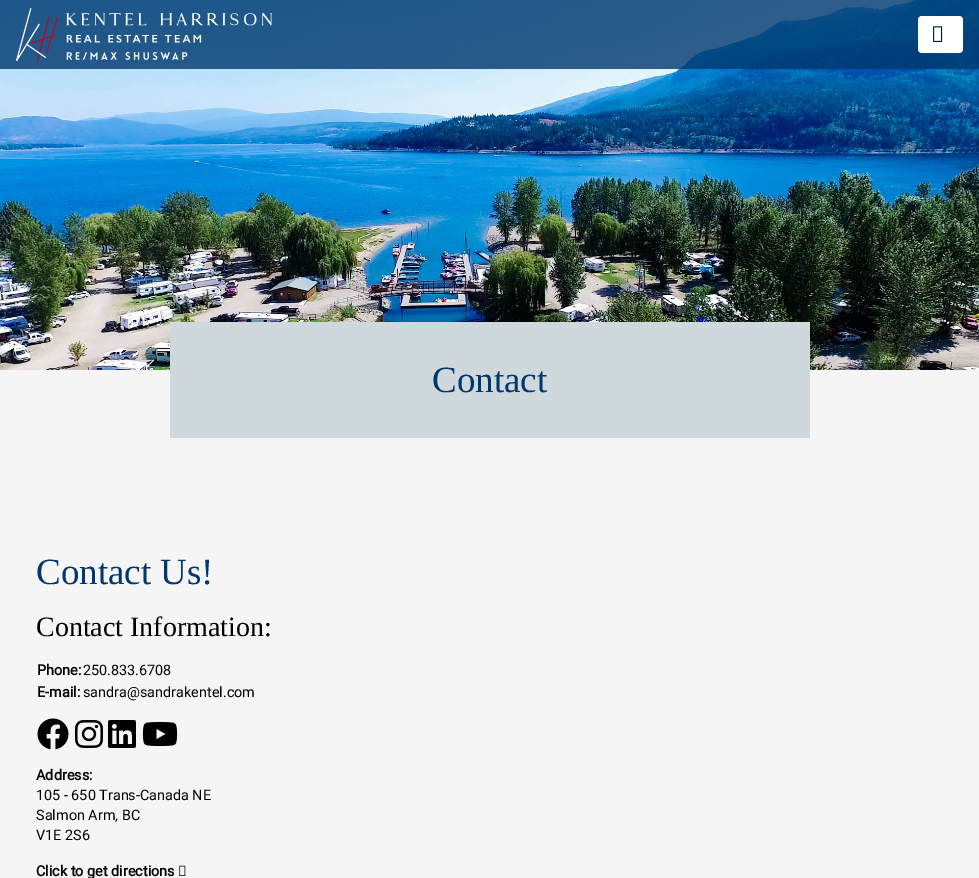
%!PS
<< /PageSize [979 878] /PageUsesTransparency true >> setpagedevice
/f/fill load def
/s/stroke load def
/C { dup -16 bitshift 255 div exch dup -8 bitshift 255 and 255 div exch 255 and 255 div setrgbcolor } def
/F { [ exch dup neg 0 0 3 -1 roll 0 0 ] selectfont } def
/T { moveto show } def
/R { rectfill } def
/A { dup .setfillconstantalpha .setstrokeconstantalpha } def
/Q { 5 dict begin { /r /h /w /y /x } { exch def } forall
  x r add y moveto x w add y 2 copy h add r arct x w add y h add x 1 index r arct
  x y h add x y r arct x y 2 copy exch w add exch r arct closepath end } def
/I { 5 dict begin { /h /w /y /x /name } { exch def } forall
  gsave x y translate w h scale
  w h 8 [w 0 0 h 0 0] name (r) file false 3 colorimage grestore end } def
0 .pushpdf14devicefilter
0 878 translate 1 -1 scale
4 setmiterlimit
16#F5F5F5 C
0 0 979 878 R
(3.rgb) 0 0 979 370 I
0.8 A
16#00376E C
0 0 979 69 R
1 A
(1.rgb) 16 8 256 53 I
16#FFFFFF C
918 16 45 37 4 Q f
0.1 A
918.5 16.5 44 36 3.5 Q s
1 A
(2.rgb) 933 26 10 16 I
16#CFD8DC C
170 322 640 116 R
/LiberationSerif-Regular 37 F
16#00376E C
(Contact) 432 392 T
(Contact Us!) 36 584 T
/LiberationSerif-Regular 28 F
16#000000 C
(Contact Information:) 36 636 T
/Roboto-Bold 14.4 F
(Phone:) 37 675 T
/Roboto-Regular 14.4 F
(250.833.6708) 83 675 T
/Roboto-Bold 14.4 F
(E-mail:) 37 697 T
/Roboto-Regular 14.4 F
(sandra@sandrakentel.com) 83 697 T
(4.rgb) 37 718 32 32 I
(5.rgb) 75 720 28 28 I
(6.rgb) 108 720 28 28 I
(7.rgb) 142 722 36 24 I
/Roboto-Bold 14.4 F
(Address:) 36 780 T
/Roboto-Regular 14.4 F
(105 - 650 Trans-Canada NE) 36 800 T
(Salmon Arm, BC) 36 820 T
(V1E 2S6) 36 840 T
/Roboto-Bold 14.4 F
(Click to get directions) 36 876 T
(8.rgb) 179 865 7 11 I
.poppdf14devicefilter showpage
